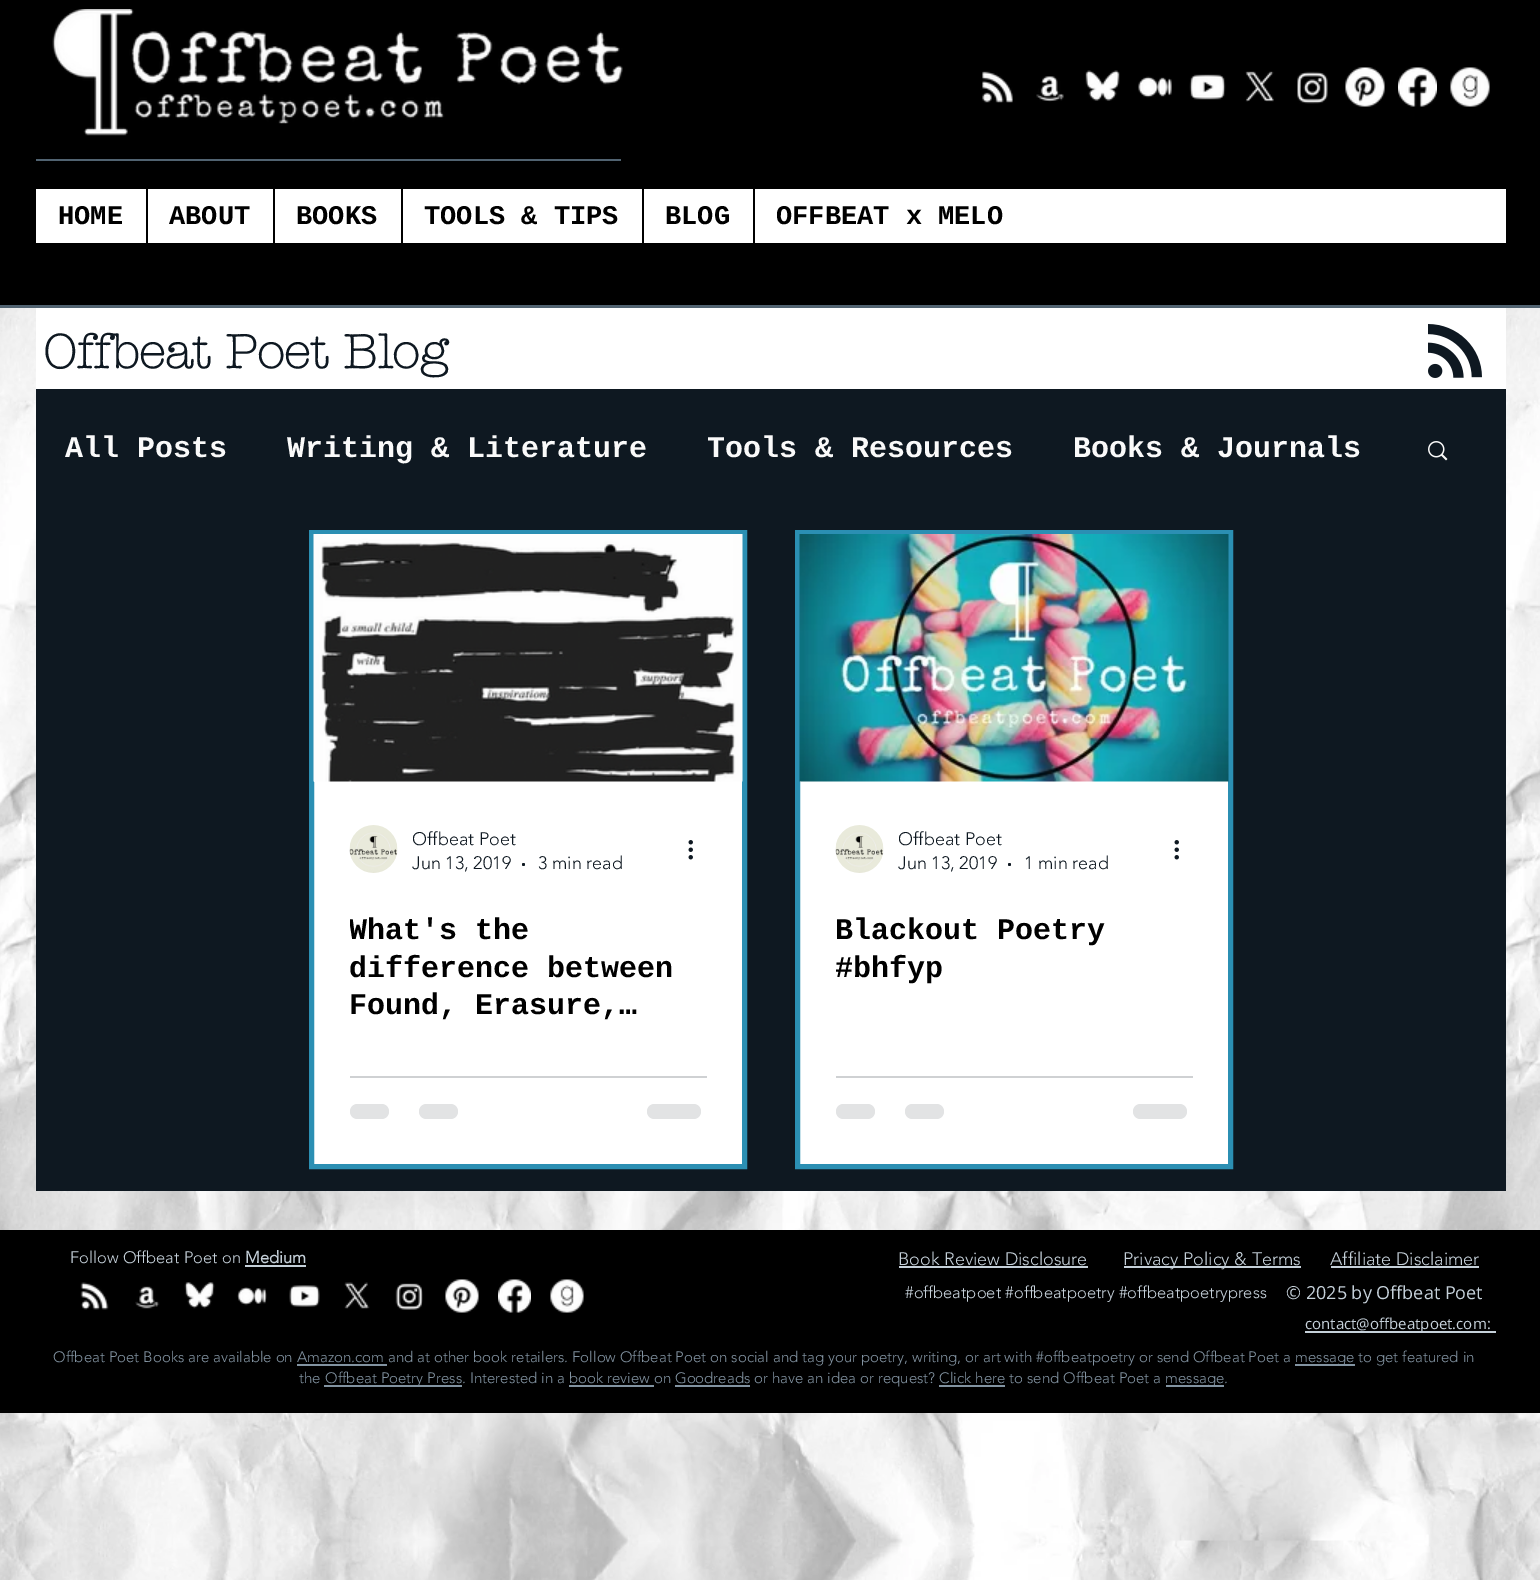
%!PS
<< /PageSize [1540 1580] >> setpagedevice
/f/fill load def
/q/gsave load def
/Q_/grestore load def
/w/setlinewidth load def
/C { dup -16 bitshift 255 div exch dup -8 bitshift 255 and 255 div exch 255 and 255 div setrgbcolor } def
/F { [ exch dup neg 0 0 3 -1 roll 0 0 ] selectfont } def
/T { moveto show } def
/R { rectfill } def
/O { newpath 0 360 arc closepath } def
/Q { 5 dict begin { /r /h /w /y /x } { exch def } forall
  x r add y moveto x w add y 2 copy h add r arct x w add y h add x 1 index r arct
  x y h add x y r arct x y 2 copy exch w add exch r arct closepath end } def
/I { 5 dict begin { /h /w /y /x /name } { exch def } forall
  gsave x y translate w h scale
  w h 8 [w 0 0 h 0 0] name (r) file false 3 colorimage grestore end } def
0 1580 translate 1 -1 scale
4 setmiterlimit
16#FFFFFF C
0 0 1540 1580 R
16#000000 C
0 0 1540 305 R
16#516371 C
0 305 1540 3 R
(1.rgb) 52 9 571 127 I
(2.rgb) 982 71 31 32 I
(3.rgb) 1036 76 28 26 I
(4.rgb) 1085 70 35 31 I
(5.rgb) 1138 76 34 22 I
(6.rgb) 1189 74 37 26 I
(7.rgb) 1245 71 29 31 I
(8.rgb) 1297 71 31 33 I
(9.rgb) 1345 67 40 40 I
(10.rgb) 1398 67 39 40 I
(11.rgb) 1450 67 40 40 I
36 159 585 2 R
16#FFFFFF C
36 189 1470 54 R
/LiberationMono-Bold 27 F
16#000000 C
(HOME) 58 224 T
146 189 2 54 R
(ABOUT) 169 224 T
273 189 2 54 R
(BOOKS) 296 224 T
401 189 2 54 R
(TOOLS & TIPS) 424 224 T
642 189 2 54 R
(BLOG) 665 224 T
753 189 2 54 R
(OFFBEAT x MELO) 776 224 T
(29.rgb) 0 308 1540 1272 I
16#FFFFFF C
36 308 1470 81 R
/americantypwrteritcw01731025-Bold 48 F
16#0E1821 C
(Offbeat Poet Blog) 43 368 T
(12.rgb) 1428 324 54 54 I
36 389 1470 802 R
/LiberationMono-Bold 30 F
16#FAFAFA C
(All Posts) 65 457 T
(Writing & Literature) 287 457 T
(Tools & Resources) 707 457 T
(Books & Journals) 1073 457 T
(13.rgb) 1428 441 20 20 I
16#FFFFFF C
314 781 428 383 R
16#2B8FB3 C
5 w
311.5 532.5 433 634 rectstroke
(14.rgb) 313 534 430 248 I
(15.rgb) 349 825 49 48 I
q
413 828 103 21 rectclip
/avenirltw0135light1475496-Light 18 F
16#0E1821 C
(Offbeat Poet) 412 845 T
Q_
/avenirltw0135light1475496-Light 18 F
16#0E1821 C
(Jun 13, 2019) 412 869 T
523.5 864.5 1.5 O f
(3 min read) 538 869 T
(16.rgb) 688 840 5 20 I
q
350 912 357 113 rectclip
/LiberationMono-Bold 30 F
16#000000 C
(What's the) 349 939 T
Q_
/LiberationMono-Bold 30 F
16#000000 C
(difference between) 349 977 T
(Found, Erasure,…) 349 1014 T
16#CFD1D3 C
350 1076 357 2 R
16#E2E3E4 C
350 1104 39 15 7.5 Q f
419 1104 39 15 7.5 Q f
647 1104 54 15 7.5 Q f
16#FFFFFF C
800 781 428 383 R
16#2B8FB3 C
797.5 532.5 433 634 rectstroke
(17.rgb) 799 534 430 248 I
(18.rgb) 835 825 49 48 I
q
899 828 103 21 rectclip
/avenirltw0135light1475496-Light 18 F
16#0E1821 C
(Offbeat Poet) 898 845 T
Q_
/avenirltw0135light1475496-Light 18 F
16#0E1821 C
(Jun 13, 2019) 898 869 T
1009.5 864.5 1.5 O f
(1 min read) 1024 869 T
(16.rgb) 1174 840 5 20 I
/LiberationMono-Bold 30 F
16#000000 C
(Blackout Poetry) 835 939 T
q
836 912 357 75 rectclip
(#bhfyp) 835 977 T
Q_
16#CFD1D3 C
836 1076 357 2 R
16#E2E3E4 C
836 1104 39 15 7.5 Q f
905 1104 39 15 7.5 Q f
1133 1104 54 15 7.5 Q f
16#000000 C
0 1230 1540 183 R
/avenirltw0135light1475496-Light 16.5 F
16#C5D0D9 C
(Follow Offbeat Poet on) 70 1263 T
/avenirltw0135light1475496-Bold 16.5 F
(Medium) 245 1263 T
245 1265 61 2 R
/avenirltw0135light1475496-Light 18 F
(Book Review Disclosure) 898 1265 T
899 1266 189 2 R
1124 1266 177 2 R
(Privacy Policy & Terms) 1123 1265 T
(Affiliate Disclaimer) 1330 1265 T
1331 1266 148 2 R
(19.rgb) 80 1282 29 28 I
(20.rgb) 135 1286 25 23 I
(21.rgb) 184 1282 31 27 I
(22.rgb) 237 1287 30 19 I
(23.rgb) 289 1285 31 22 I
(24.rgb) 344 1282 26 27 I
(25.rgb) 395 1283 28 27 I
(26.rgb) 445 1279 34 34 I
(27.rgb) 498 1279 33 34 I
(28.rgb) 550 1279 34 34 I
/avenirltw0135light1475496-Light 16.5 F
(#offbeatpoet #offbeatpoetry #offbeatpoetrypress) 905 1298 T
/OpenSans-Regular 18 F
(© 2025 by Offbeat Poet) 1286 1299 T
1305 1331 191 2 R
/OpenSans-Regular 15 F
(contact@offbeatpoet.com:) 1305 1329 T
/avenirltw0135light1475496-Light 15 F
16#8293A1 C
(Offbeat Poet Books are available on Amazon.com and at other book retailers. Follow Offbeat Poet on social and tag your poetry, writing, or art with #offbeatpoetry or send Offbeat Poet a) 53 1362 T
297 1364 90 2 R
1295 1364 60 2 R
(message to get featured in) 1295 1362 T
(the) 299 1383 T
324 1385 138 2 R
(Offbeat Poetry Press. Interested in a book review on Goodreads or have an idea or request? Click here to send Offbeat Poet a) 325 1383 T
569 1385 85 2 R
675 1385 75 2 R
939 1385 66 2 R
1166 1385 58 2 R
(message.) 1165 1383 T
showpage
